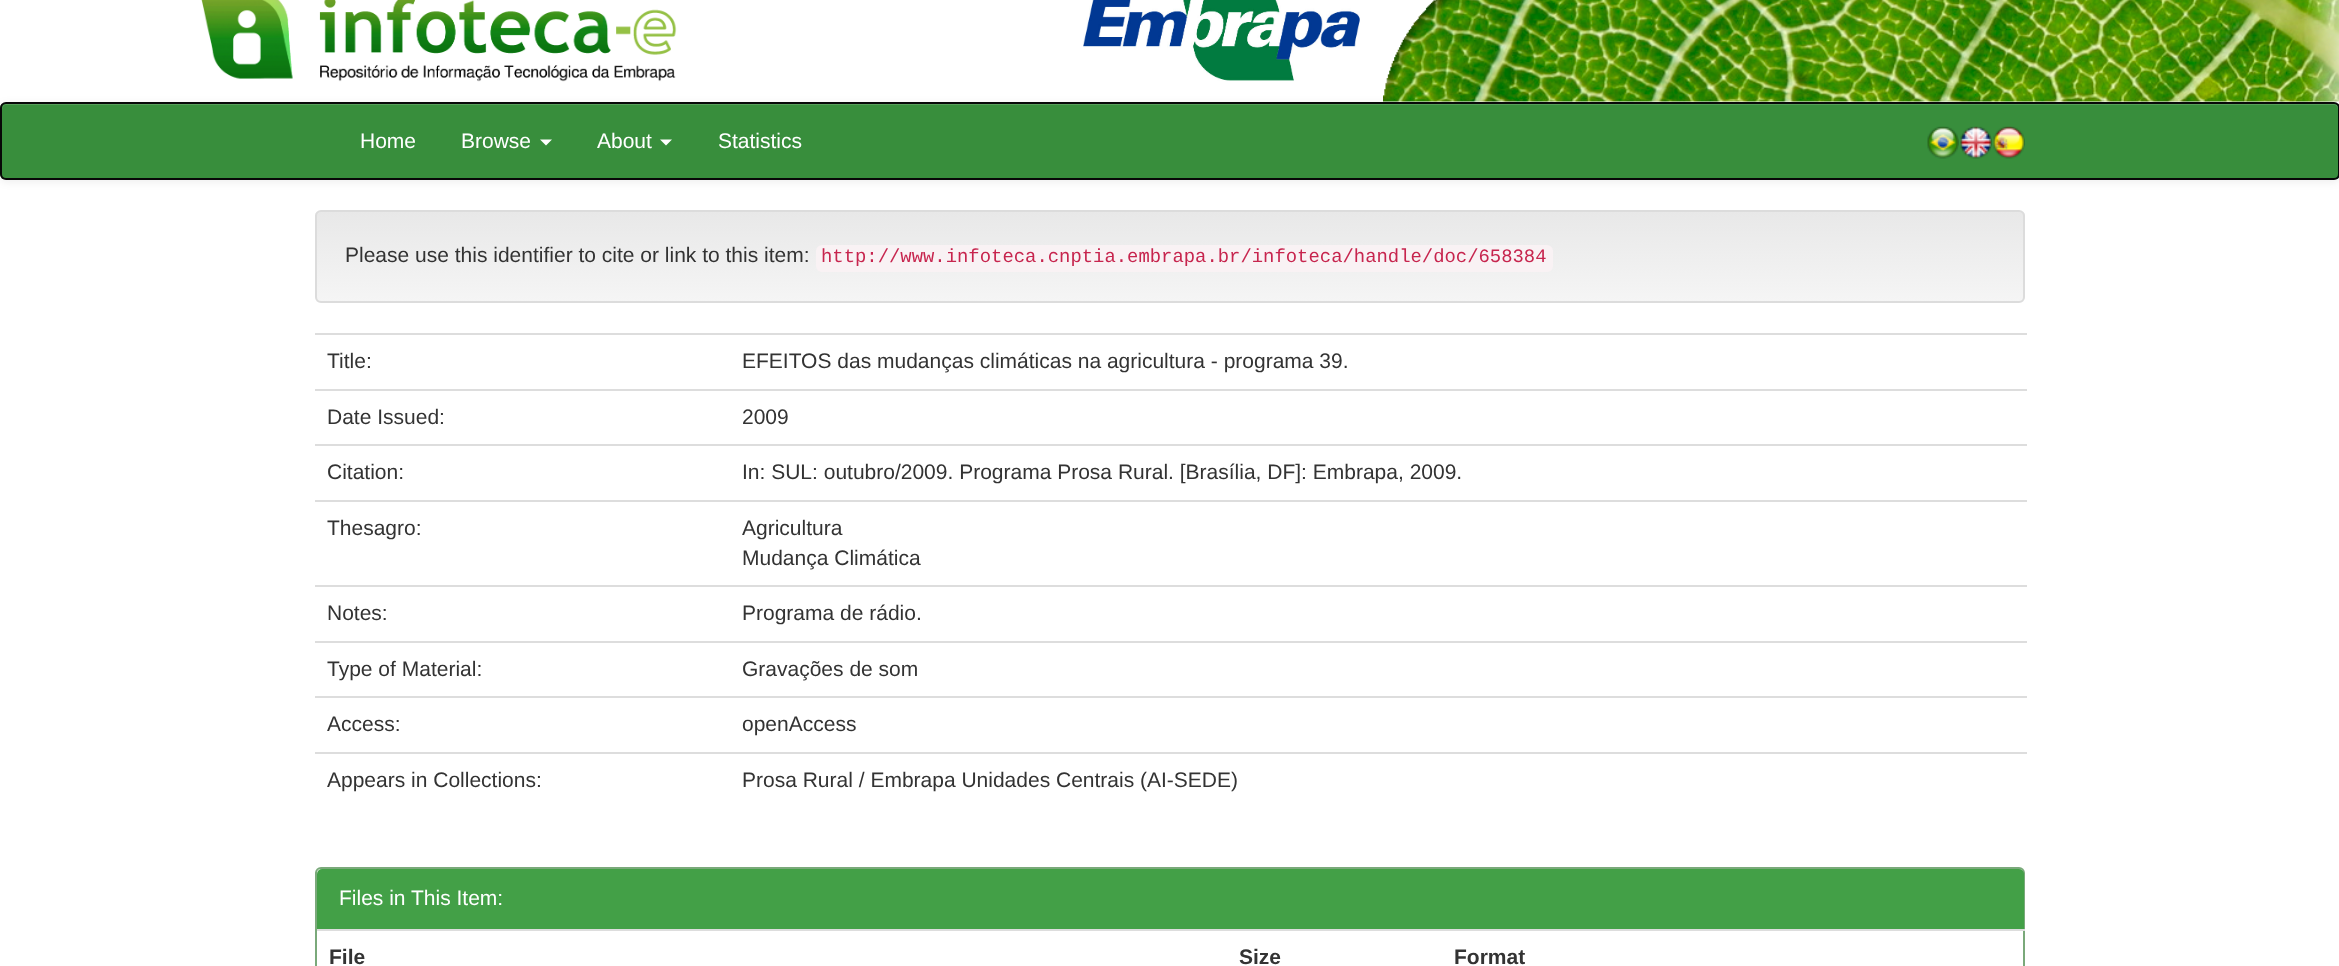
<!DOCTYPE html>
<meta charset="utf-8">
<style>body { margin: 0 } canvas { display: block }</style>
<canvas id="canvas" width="2339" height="966"></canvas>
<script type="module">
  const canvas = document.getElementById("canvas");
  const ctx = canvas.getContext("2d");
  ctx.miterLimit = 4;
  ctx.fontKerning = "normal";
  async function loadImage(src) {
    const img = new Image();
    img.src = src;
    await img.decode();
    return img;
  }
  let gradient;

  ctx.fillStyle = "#ffffff";
  ctx.fillRect(0, 0, 2339, 966);
  ctx.drawImage(await loadImage("img1.png"), 201, 0, 476, 82);
  ctx.drawImage(await loadImage("img2.png"), 1083, 0, 277, 81);
  ctx.drawImage(await loadImage("img3.png"), 1383, 0, 956, 102);
  ctx.fillStyle = "rgba(0, 0, 0, 0.07)";
  ctx.filter = "blur(4px)";
  ctx.beginPath();
  ctx.roundRect(0, 104, 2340, 78, 6);
  ctx.fill();
  ctx.filter = "none";
  ctx.save();
  ctx.beginPath();
  ctx.roundRect(0, 102, 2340, 78, 6);
  ctx.clip();
  ctx.fillStyle = "#388e3c";
  ctx.fillRect(0, 104, 2339, 75);
  ctx.restore();
  ctx.fillStyle = "#569f59";
  ctx.beginPath();
  ctx.moveTo(6, 105);
  ctx.lineTo(2334, 105);
  ctx.bezierCurveTo(2336, 105, 2338, 107, 2338, 110);
  ctx.lineTo(2338, 177);
  ctx.bezierCurveTo(2339, 176, 2339, 175, 2339, 174);
  ctx.lineTo(2339, 109);
  ctx.bezierCurveTo(2339, 106, 2337, 104, 2334, 104);
  ctx.lineTo(7, 104);
  ctx.bezierCurveTo(4, 104, 2, 106, 2, 109);
  ctx.lineTo(2, 110);
  ctx.bezierCurveTo(2, 107, 4, 105, 6, 105);
  ctx.closePath();
  ctx.fill();
  ctx.beginPath();
  ctx.roundRect(1, 103, 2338, 76, 5);
  ctx.strokeStyle = "#080808";
  ctx.lineWidth = 2;
  ctx.stroke();
  ctx.font = "21px Liberation Sans";
  ctx.fillStyle = "#ffffff";
  ctx.fillText("Home", 360, 148);
  ctx.fillText("Browse", 461, 148);
  ctx.beginPath();
  ctx.moveTo(540, 139.5);
  ctx.lineTo(552, 139.5);
  ctx.lineTo(546, 145.5);
  ctx.closePath();
  ctx.fill();
  ctx.fillText("About", 597, 148);
  ctx.beginPath();
  ctx.moveTo(660, 139.5);
  ctx.lineTo(672, 139.5);
  ctx.lineTo(666, 145.5);
  ctx.closePath();
  ctx.fill();
  ctx.fillText("Statistics", 718, 148);
  ctx.drawImage(await loadImage("img4.png"), 1927, 126, 32, 33);
  ctx.drawImage(await loadImage("img5.png"), 1960, 126, 32, 33);
  ctx.drawImage(await loadImage("img6.png"), 1993, 126, 32, 33);
  ctx.save();
  ctx.beginPath();
  ctx.roundRect(315, 210, 1710, 93, 6);
  ctx.clip();
  gradient = ctx.createLinearGradient(1170, 211, 1170, 302);
  gradient.addColorStop(0, "#e8e8e8");
  gradient.addColorStop(1, "#f5f5f5");
  ctx.fillStyle = gradient;
  ctx.fillRect(315, 212, 1710, 90);
  ctx.restore();
  ctx.beginPath();
  ctx.roundRect(316, 211, 1708, 91, 5);
  ctx.strokeStyle = "#dcdcdc";
  ctx.stroke();
  ctx.fillStyle = "#333333";
  ctx.fillText("Please use this identifier to cite or link to this item:", 345, 262);
  ctx.fillStyle = "#f9f2f4";
  ctx.beginPath();
  ctx.roundRect(816, 245, 737, 27, 6);
  ctx.fill();
  ctx.font = "18.9px Liberation Mono";
  ctx.fillStyle = "#c7254e";
  ctx.fillText("http://www.infoteca.cnptia.embrapa.br/infoteca/handle/doc/658384", 821, 262);
  ctx.font = "21px Liberation Sans";
  ctx.fillStyle = "#333333";
  ctx.fillText("Title:", 327, 368);
  ctx.fillStyle = "#dddddd";
  ctx.fillRect(315, 333, 1712, 2);
  ctx.fillStyle = "#333333";
  ctx.fillText("EFEITOS das mudanças climáticas na agricultura - programa 39.", 742, 368);
  ctx.fillText("Date Issued:", 327, 424);
  ctx.fillStyle = "#dddddd";
  ctx.fillRect(315, 389, 1712, 2);
  ctx.fillStyle = "#333333";
  ctx.fillText("2009", 742, 424);
  ctx.fillText("Citation:", 327, 479);
  ctx.fillStyle = "#dddddd";
  ctx.fillRect(315, 444, 1712, 2);
  ctx.fillStyle = "#333333";
  ctx.fillText("In: SUL: outubro/2009. Programa Prosa Rural. [Brasília, DF]: Embrapa, 2009.", 742, 479);
  ctx.fillText("Thesagro:", 327, 535);
  ctx.fillStyle = "#dddddd";
  ctx.fillRect(315, 500, 1712, 2);
  ctx.fillStyle = "#333333";
  ctx.fillText("Agricultura", 742, 535);
  ctx.fillText("Mudança Climática", 742, 565);
  ctx.fillText("Notes:", 327, 620);
  ctx.fillStyle = "#dddddd";
  ctx.fillRect(315, 585, 1712, 2);
  ctx.fillStyle = "#333333";
  ctx.fillText("Programa de rádio.", 742, 620);
  ctx.fillText("Type of Material:", 327, 676);
  ctx.fillStyle = "#dddddd";
  ctx.fillRect(315, 641, 1712, 2);
  ctx.fillStyle = "#333333";
  ctx.fillText("Gravações de som", 742, 676);
  ctx.fillText("Access:", 327, 731);
  ctx.fillStyle = "#dddddd";
  ctx.fillRect(315, 696, 1712, 2);
  ctx.fillStyle = "#333333";
  ctx.fillText("openAccess", 742, 731);
  ctx.fillText("Appears in Collections:", 327, 787);
  ctx.fillStyle = "#dddddd";
  ctx.fillRect(315, 752, 1712, 2);
  ctx.fillStyle = "#333333";
  ctx.fillText("Prosa Rural / Embrapa Unidades Centrais (AI-SEDE)", 742, 787);
  ctx.beginPath();
  ctx.roundRect(316, 868, 1708, 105, 5);
  ctx.strokeStyle = "#7aa97a";
  ctx.stroke();
  ctx.fillStyle = "#43a047";
  ctx.beginPath();
  ctx.roundRect(317, 869, 1707, 60, [5, 5, 0, 0]);
  ctx.fill();
  ctx.fillStyle = "#ffffff";
  ctx.fillText("Files in This Item:", 339, 905);
  ctx.fillStyle = "#dddddd";
  ctx.fillRect(317, 929, 1708, 2);
  ctx.font = "bold 21px Liberation Sans";
  ctx.fillStyle = "#333333";
  ctx.fillText("File", 329, 964);
  ctx.fillText("Size", 1239, 964);
  ctx.fillText("Format", 1454, 964);
</script>
